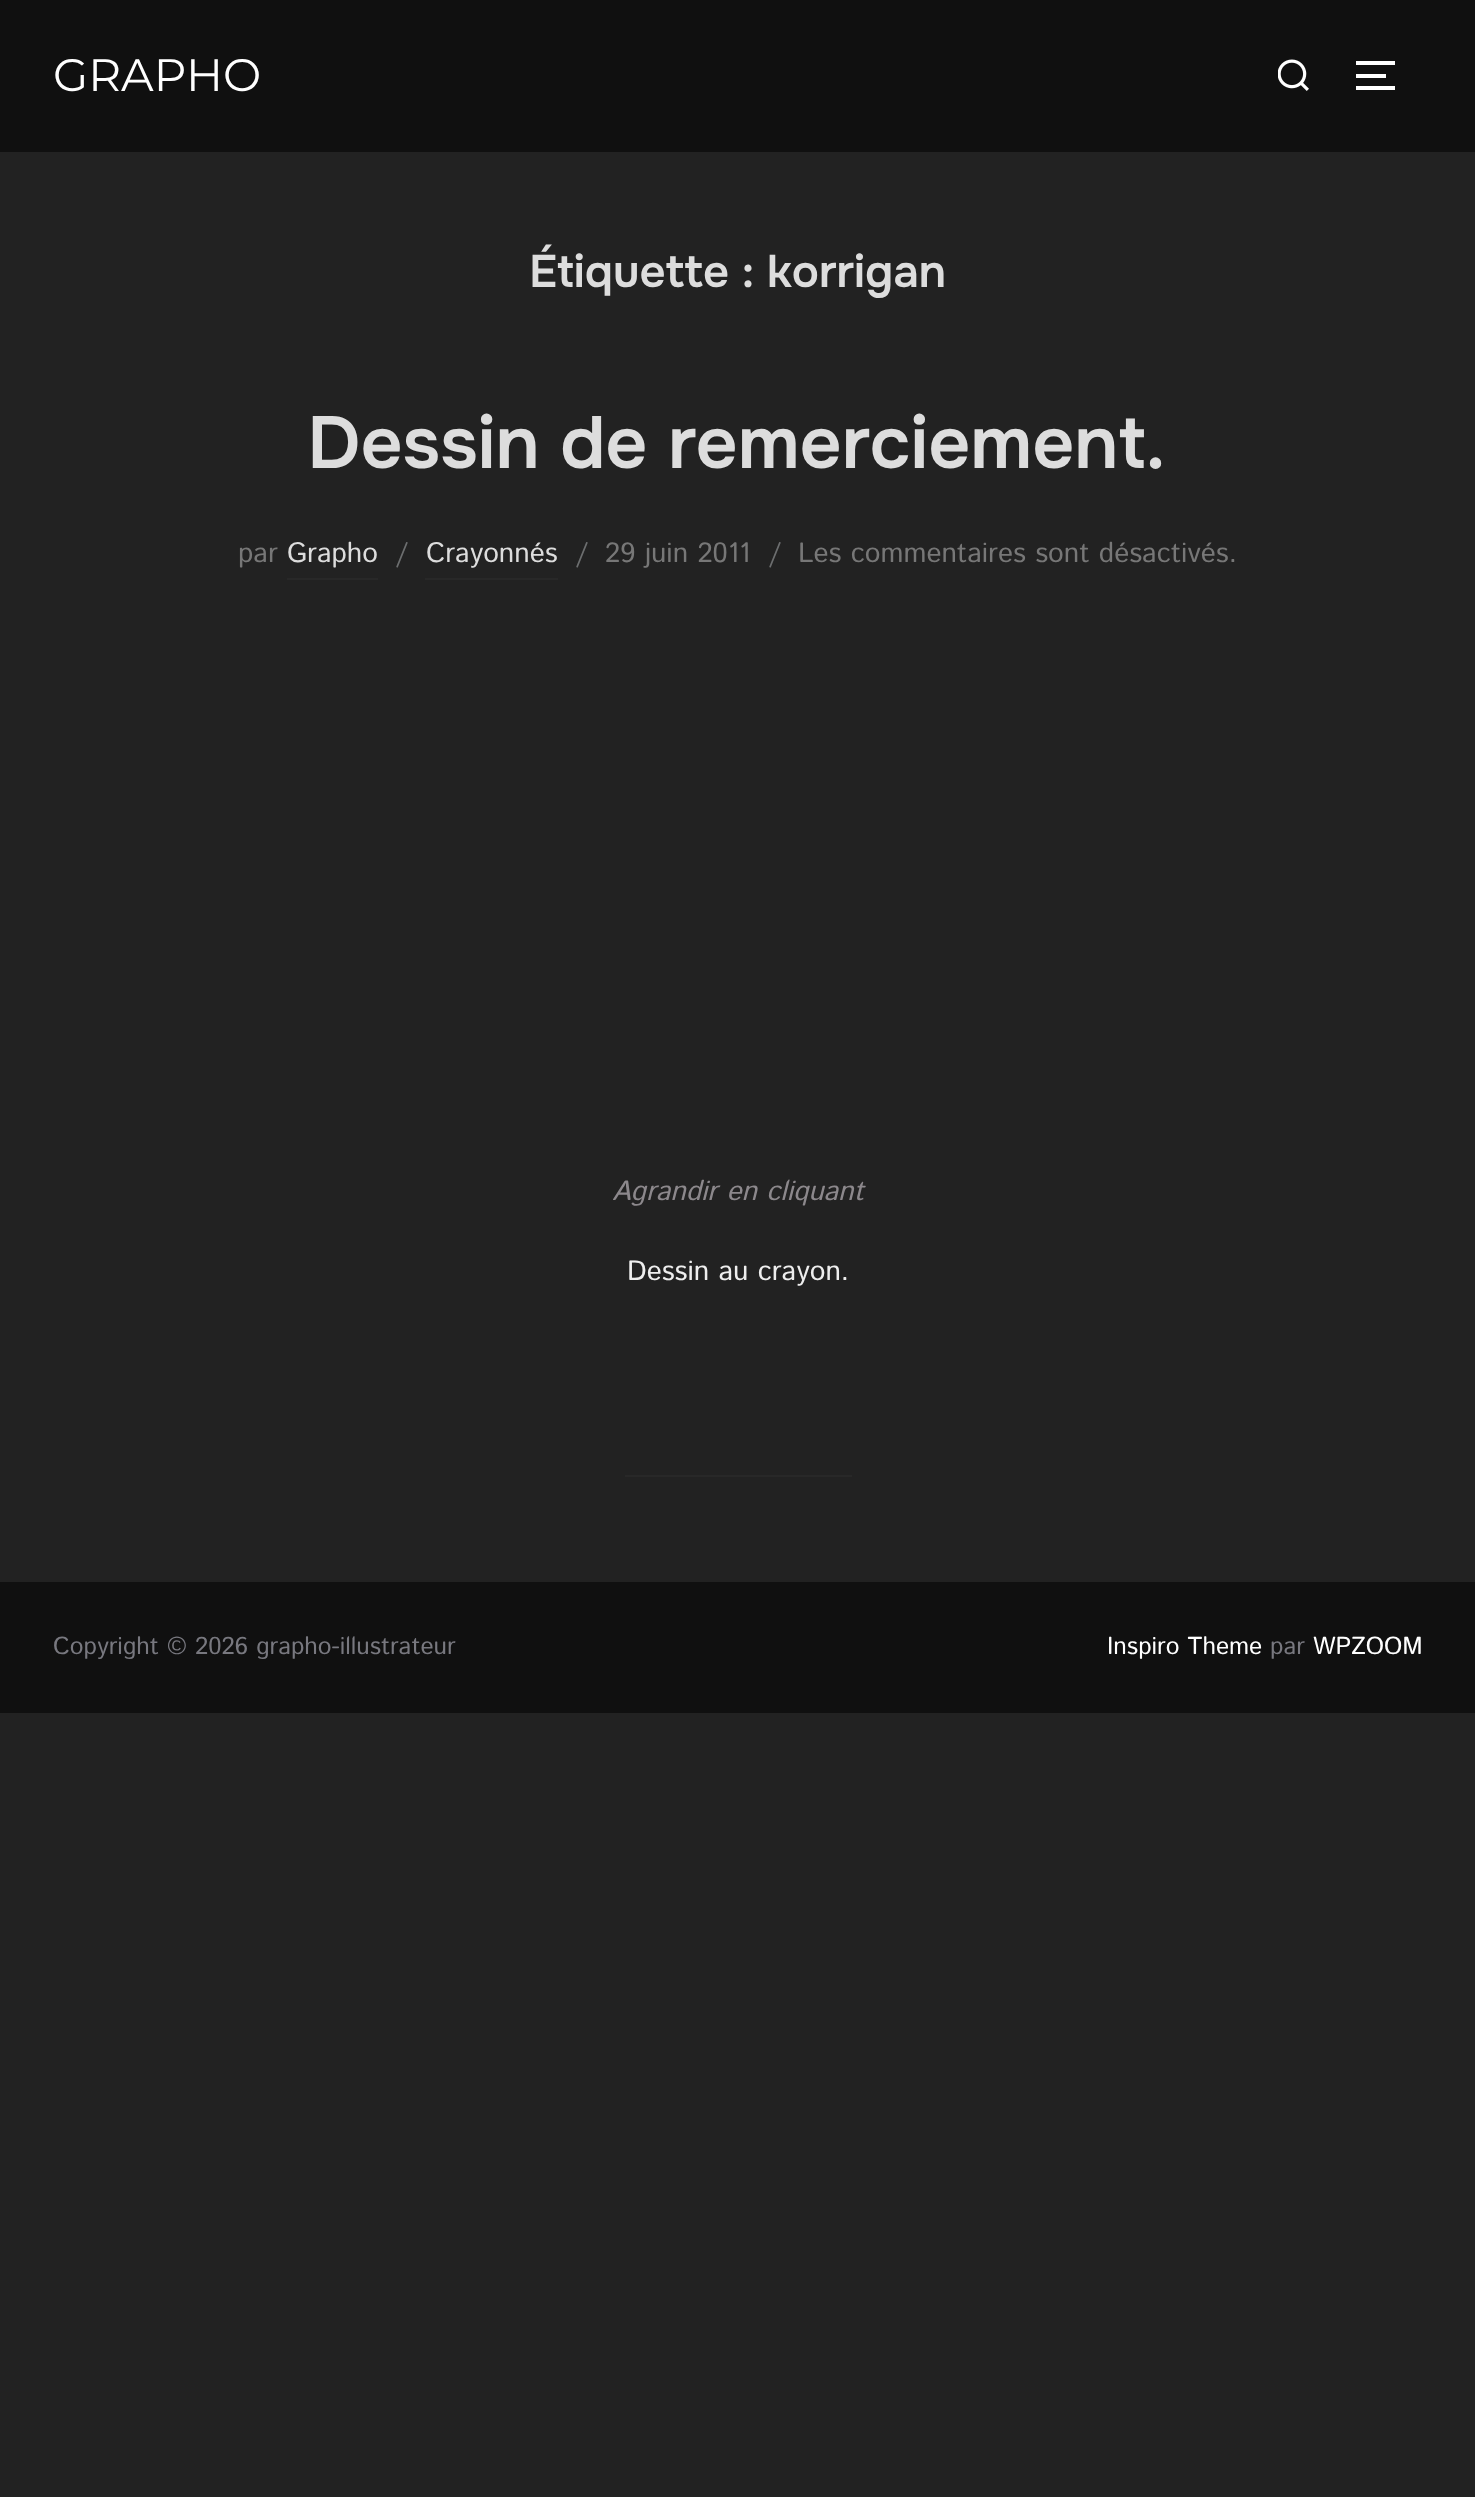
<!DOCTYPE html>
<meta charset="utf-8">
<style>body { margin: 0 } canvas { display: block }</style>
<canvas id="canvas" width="1475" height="2497"></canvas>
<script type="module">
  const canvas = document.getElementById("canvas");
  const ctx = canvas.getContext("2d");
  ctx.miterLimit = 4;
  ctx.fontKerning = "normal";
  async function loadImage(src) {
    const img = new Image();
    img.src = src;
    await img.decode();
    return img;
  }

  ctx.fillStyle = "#222222";
  ctx.fillRect(0, 0, 1475, 2497);
  ctx.fillStyle = "#101010";
  ctx.fillRect(0, 0, 1475, 152);
  ctx.font = "100 45.5px Montserrat";
  ctx.fillStyle = "#ffffff";
  ctx.fillText("GRAPHO", 53, 91);
  ctx.drawImage(await loadImage("img1.png"), 1278, 59, 31, 32);
  ctx.fillRect(1356, 61, 39, 4);
  ctx.fillRect(1356, 74, 30, 4);
  ctx.fillRect(1356, 86, 39, 4);
  ctx.font = "600 45.5px Onest";
  ctx.fillStyle = "#dddddd";
  ctx.fillText("Étiquette : korrigan", 529, 287);
  ctx.font = "600 73.5px Onest";
  ctx.fillText("Dessin de remerciement.", 307, 468);
  ctx.font = "28px Istok Web";
  ctx.fillStyle = "#777777";
  ctx.fillText("par", 238, 562);
  ctx.fillStyle = "#dddddd";
  ctx.fillText("Grapho", 287, 562);
  ctx.fillStyle = "#282828";
  ctx.fillRect(287, 578, 91, 2);
  ctx.fillStyle = "#6c6e6f";
  ctx.fillText("/", 396, 562);
  ctx.fillStyle = "#dddddd";
  ctx.fillText("Crayonnés", 426, 562);
  ctx.fillStyle = "#282828";
  ctx.fillRect(425, 578, 133, 2);
  ctx.fillStyle = "#6c6e6f";
  ctx.fillText("/", 576, 562);
  ctx.fillStyle = "#777777";
  ctx.fillText("29 juin 2011", 605, 562);
  ctx.fillStyle = "#6c6e6f";
  ctx.fillText("/", 769, 562);
  ctx.fillStyle = "#777777";
  ctx.fillText("Les commentaires sont désactivés.", 798, 562);
  ctx.font = "italic 28px Istok Web";
  ctx.fillStyle = "#8c888c";
  ctx.fillText("Agrandir en cliquant", 612, 1200);
  ctx.font = "28px Istok Web";
  ctx.fillStyle = "#eeeeee";
  ctx.fillText("Dessin au crayon.", 627, 1280);
  ctx.fillStyle = "#282828";
  ctx.fillRect(625, 1475, 227, 2);
  ctx.fillStyle = "#101010";
  ctx.fillRect(0, 1582, 1475, 131);
  ctx.font = "24.5px Istok Web";
  ctx.fillStyle = "#78787f";
  ctx.fillText("Copyright © 2026 grapho-illustrateur", 53, 1654);
  ctx.fillStyle = "#ffffff";
  ctx.fillText("Inspiro Theme", 1107, 1654);
  ctx.fillStyle = "#78787f";
  ctx.fillText("par", 1270, 1654);
  ctx.fillStyle = "#ffffff";
  ctx.fillText("WPZOOM", 1313, 1654);
</script>
